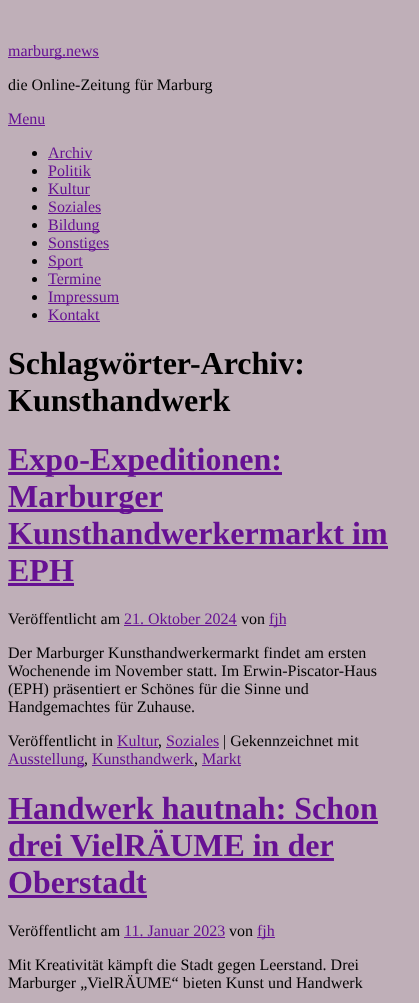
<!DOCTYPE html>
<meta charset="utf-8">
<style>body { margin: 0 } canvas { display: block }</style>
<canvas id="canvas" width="419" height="1003"></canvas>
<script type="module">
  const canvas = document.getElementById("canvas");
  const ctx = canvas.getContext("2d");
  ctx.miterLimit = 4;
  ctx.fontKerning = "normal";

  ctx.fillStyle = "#bfafb8";
  ctx.fillRect(0, 0, 419, 1003);
  ctx.fillStyle = "#661193";
  ctx.fillRect(8, 57, 91, 1);
  ctx.font = "16px Liberation Serif";
  ctx.fillText("marburg.news", 8, 56);
  ctx.fillStyle = "#000000";
  ctx.fillText("die Online-Zeitung für Marburg", 8, 90);
  ctx.fillStyle = "#661193";
  ctx.fillText("Menu", 8, 124);
  ctx.fillRect(8, 125, 37, 1);
  ctx.fillStyle = "#000000";
  ctx.beginPath();
  ctx.arc(34.5, 153.5, 2.5, 0, Math.PI * 2);
  ctx.fill();
  ctx.fillStyle = "#661193";
  ctx.fillText("Archiv", 48, 158);
  ctx.fillRect(48, 159, 44, 1);
  ctx.fillStyle = "#000000";
  ctx.beginPath();
  ctx.arc(34.5, 171.5, 2.5, 0, Math.PI * 2);
  ctx.fill();
  ctx.fillStyle = "#661193";
  ctx.fillText("Politik", 48, 176);
  ctx.fillRect(48, 177, 43, 1);
  ctx.fillStyle = "#000000";
  ctx.beginPath();
  ctx.arc(34.5, 189.5, 2.5, 0, Math.PI * 2);
  ctx.fill();
  ctx.fillStyle = "#661193";
  ctx.fillText("Kultur", 48, 194);
  ctx.fillRect(48, 195, 42, 1);
  ctx.fillStyle = "#000000";
  ctx.beginPath();
  ctx.arc(34.5, 207.5, 2.5, 0, Math.PI * 2);
  ctx.fill();
  ctx.fillStyle = "#661193";
  ctx.fillText("Soziales", 48, 212);
  ctx.fillRect(48, 213, 53, 1);
  ctx.fillStyle = "#000000";
  ctx.beginPath();
  ctx.arc(34.5, 225.5, 2.5, 0, Math.PI * 2);
  ctx.fill();
  ctx.fillStyle = "#661193";
  ctx.fillRect(48, 231, 52, 1);
  ctx.fillText("Bildung", 48, 230);
  ctx.fillStyle = "#000000";
  ctx.beginPath();
  ctx.arc(34.5, 243.5, 2.5, 0, Math.PI * 2);
  ctx.fill();
  ctx.fillStyle = "#661193";
  ctx.fillRect(48, 249, 61, 1);
  ctx.fillText("Sonstiges", 48, 248);
  ctx.fillStyle = "#000000";
  ctx.beginPath();
  ctx.arc(34.5, 261.5, 2.5, 0, Math.PI * 2);
  ctx.fill();
  ctx.fillStyle = "#661193";
  ctx.fillRect(48, 267, 35, 1);
  ctx.fillText("Sport", 48, 266);
  ctx.fillStyle = "#000000";
  ctx.beginPath();
  ctx.arc(34.5, 279.5, 2.5, 0, Math.PI * 2);
  ctx.fill();
  ctx.fillStyle = "#661193";
  ctx.fillText("Termine", 48, 284);
  ctx.fillRect(48, 285, 53, 1);
  ctx.fillStyle = "#000000";
  ctx.beginPath();
  ctx.arc(34.5, 297.5, 2.5, 0, Math.PI * 2);
  ctx.fill();
  ctx.fillStyle = "#661193";
  ctx.fillRect(48, 303, 71, 1);
  ctx.fillText("Impressum", 48, 302);
  ctx.fillStyle = "#000000";
  ctx.beginPath();
  ctx.arc(34.5, 315.5, 2.5, 0, Math.PI * 2);
  ctx.fill();
  ctx.fillStyle = "#661193";
  ctx.fillText("Kontakt", 48, 320);
  ctx.fillRect(48, 321, 52, 1);
  ctx.font = "bold 32px Liberation Serif";
  ctx.fillStyle = "#000000";
  ctx.fillText("Schlagwörter-Archiv:", 8, 374);
  ctx.fillText("Kunsthandwerk", 8, 411);
  ctx.fillStyle = "#661193";
  ctx.fillRect(8, 472, 274, 3);
  ctx.fillText("Expo-Expeditionen:", 8, 470);
  ctx.fillRect(8, 509, 155, 3);
  ctx.fillText("Marburger", 8, 507);
  ctx.fillText("Kunsthandwerkermarkt im", 8, 544);
  ctx.fillRect(8, 546, 380, 3);
  ctx.fillText("EPH", 8, 581);
  ctx.fillRect(8, 583, 66, 3);
  ctx.font = "16px Liberation Serif";
  ctx.fillStyle = "#000000";
  ctx.fillText("Veröffentlicht am", 8, 624);
  ctx.fillStyle = "#661193";
  ctx.fillText("21. Oktober 2024", 124, 624);
  ctx.fillRect(124, 625, 113, 1);
  ctx.fillStyle = "#000000";
  ctx.fillText("von", 241, 624);
  ctx.fillStyle = "#661193";
  ctx.fillRect(269, 625, 17, 1);
  ctx.fillText("fjh", 269, 624);
  ctx.fillStyle = "#000000";
  ctx.fillText("Der Marburger Kunsthandwerkermarkt findet am ersten", 8, 658);
  ctx.fillText("Wochenende im November statt. Im Erwin-Piscator-Haus", 8, 676);
  ctx.fillText("(EPH) präsentiert er Schönes für die Sinne und", 8, 694);
  ctx.fillText("Handgemachtes für Zuhause.", 8, 712);
  ctx.fillText("Veröffentlicht in", 8, 746);
  ctx.fillStyle = "#661193";
  ctx.fillText("Kultur", 117, 746);
  ctx.fillStyle = "#000000";
  ctx.fillText(",", 158, 746);
  ctx.fillStyle = "#661193";
  ctx.fillRect(117, 747, 41, 1);
  ctx.fillRect(166, 747, 53, 1);
  ctx.fillText("Soziales", 166, 746);
  ctx.fillStyle = "#000000";
  ctx.fillText("| Gekennzeichnet mit", 223, 746);
  ctx.fillStyle = "#661193";
  ctx.fillRect(8, 765, 76, 1);
  ctx.fillText("Ausstellung", 8, 764);
  ctx.fillStyle = "#000000";
  ctx.fillText(",", 84, 764);
  ctx.fillStyle = "#661193";
  ctx.fillText("Kunsthandwerk", 92, 764);
  ctx.fillStyle = "#000000";
  ctx.fillText(",", 194, 764);
  ctx.fillStyle = "#661193";
  ctx.fillRect(92, 765, 102, 1);
  ctx.fillRect(202, 765, 39, 1);
  ctx.fillText("Markt", 202, 764);
  ctx.font = "bold 32px Liberation Serif";
  ctx.fillText("Handwerk hautnah: Schon", 8, 819);
  ctx.fillRect(8, 821, 370, 3);
  ctx.fillText("drei VielRÄUME in der", 8, 856);
  ctx.fillRect(8, 858, 326, 3);
  ctx.fillText("Oberstadt", 8, 893);
  ctx.fillRect(8, 895, 139, 3);
  ctx.font = "16px Liberation Serif";
  ctx.fillStyle = "#000000";
  ctx.fillText("Veröffentlicht am", 8, 936);
  ctx.fillStyle = "#661193";
  ctx.fillText("11. Januar 2023", 124, 936);
  ctx.fillRect(124, 937, 101, 1);
  ctx.fillStyle = "#000000";
  ctx.fillText("von", 229, 936);
  ctx.fillStyle = "#661193";
  ctx.fillRect(257, 937, 18, 1);
  ctx.fillText("fjh", 257, 936);
  ctx.fillStyle = "#000000";
  ctx.fillText("Mit Kreativität kämpft die Stadt gegen Leerstand. Drei", 8, 970);
  ctx.fillText("Marburger „VielRÄUME“ bieten Kunst und Handwerk", 8, 988);
</script>
